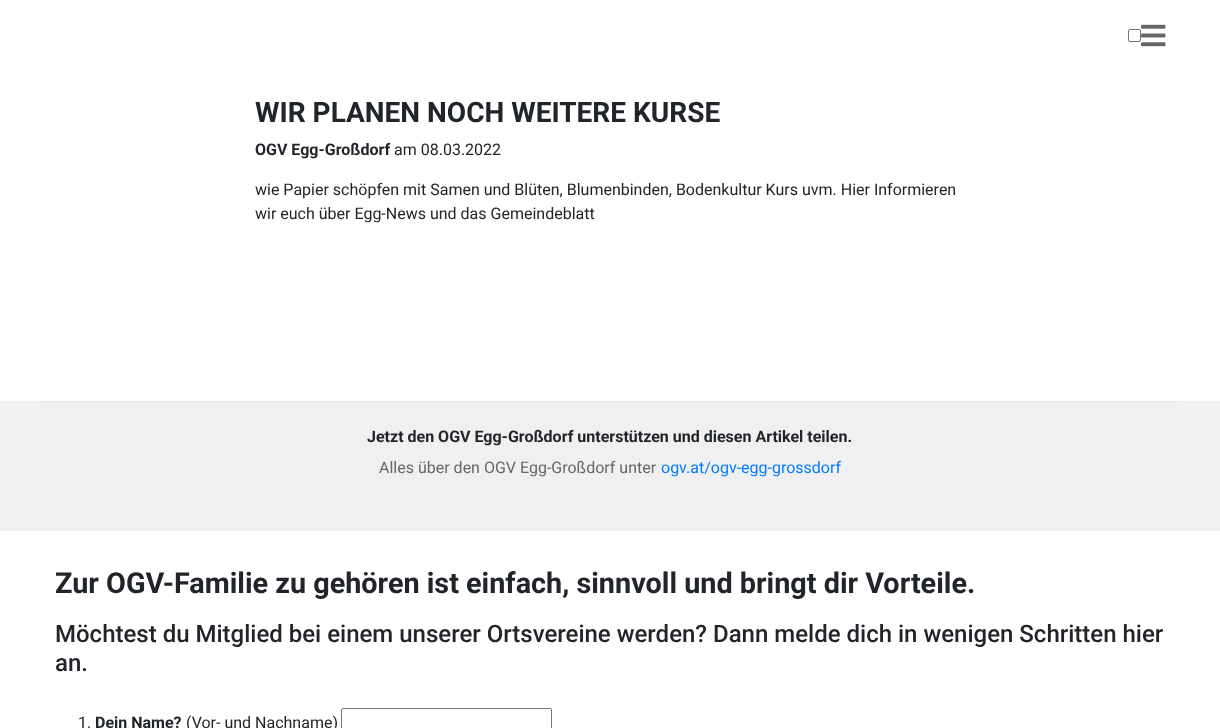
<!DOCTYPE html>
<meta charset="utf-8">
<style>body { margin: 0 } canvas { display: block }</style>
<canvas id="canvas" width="1220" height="728"></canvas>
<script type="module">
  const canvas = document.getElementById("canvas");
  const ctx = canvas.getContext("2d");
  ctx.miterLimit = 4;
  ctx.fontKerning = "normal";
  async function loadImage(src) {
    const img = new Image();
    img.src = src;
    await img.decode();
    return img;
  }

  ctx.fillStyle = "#ffffff";
  ctx.fillRect(0, 0, 1220, 728);
  ctx.beginPath();
  ctx.roundRect(1128.5, 29.5, 12, 12, 1.5);
  ctx.strokeStyle = "#767676";
  ctx.stroke();
  ctx.drawImage(await loadImage("img1.png"), 1141, 24, 25, 23);
  ctx.font = "bold 28px Roboto";
  ctx.fillStyle = "#212529";
  ctx.fillText("WIR PLANEN NOCH WEITERE KURSE", 255, 122);
  ctx.font = "bold 16px Roboto";
  ctx.fillText("OGV Egg-Großdorf", 255, 155);
  ctx.font = "16px Roboto";
  ctx.fillText("am 08.03.2022", 394, 155);
  ctx.fillText("wie Papier schöpfen mit Samen und Blüten, Blumenbinden, Bodenkultur Kurs uvm. Hier Informieren", 255, 195);
  ctx.fillText("wir euch über Egg-News und das Gemeindeblatt", 255, 219);
  ctx.fillStyle = "#f0f0f0";
  ctx.fillRect(0, 401, 1220, 130);
  ctx.fillStyle = "#e9e9e9";
  ctx.fillRect(40, 401, 1140, 1);
  ctx.font = "bold 16px Roboto";
  ctx.fillStyle = "#212529";
  ctx.fillText("Jetzt den OGV Egg-Großdorf unterstützen und diesen Artikel teilen.", 367, 442);
  ctx.font = "16px Roboto";
  ctx.fillStyle = "#666666";
  ctx.fillText("Alles über den OGV Egg-Großdorf unter", 379, 473);
  ctx.fillStyle = "#007bff";
  ctx.fillText("ogv.at/ogv-egg-grossdorf", 661, 473);
  ctx.font = "bold 28.8px Roboto";
  ctx.fillStyle = "#212529";
  ctx.fillText("Zur OGV-Familie zu gehören ist einfach, sinnvoll und bringt dir Vorteile.", 55, 593);
  ctx.font = "500 24px Roboto";
  ctx.fillText("Möchtest du Mitglied bei einem unserer Ortsvereine werden? Dann melde dich in wenigen Schritten hier", 55, 642);
  ctx.fillText("an.", 55, 671);
  ctx.font = "16px Roboto";
  ctx.fillText("1.", 78, 728);
  ctx.font = "bold 16px Roboto";
  ctx.fillText("Dein Name?", 95, 728);
  ctx.font = "16px Roboto";
  ctx.fillText("(Vor- und Nachname)", 186, 728);
  ctx.beginPath();
  ctx.roundRect(341.5, 708.5, 210, 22, 1.5);
  ctx.stroke();
</script>
